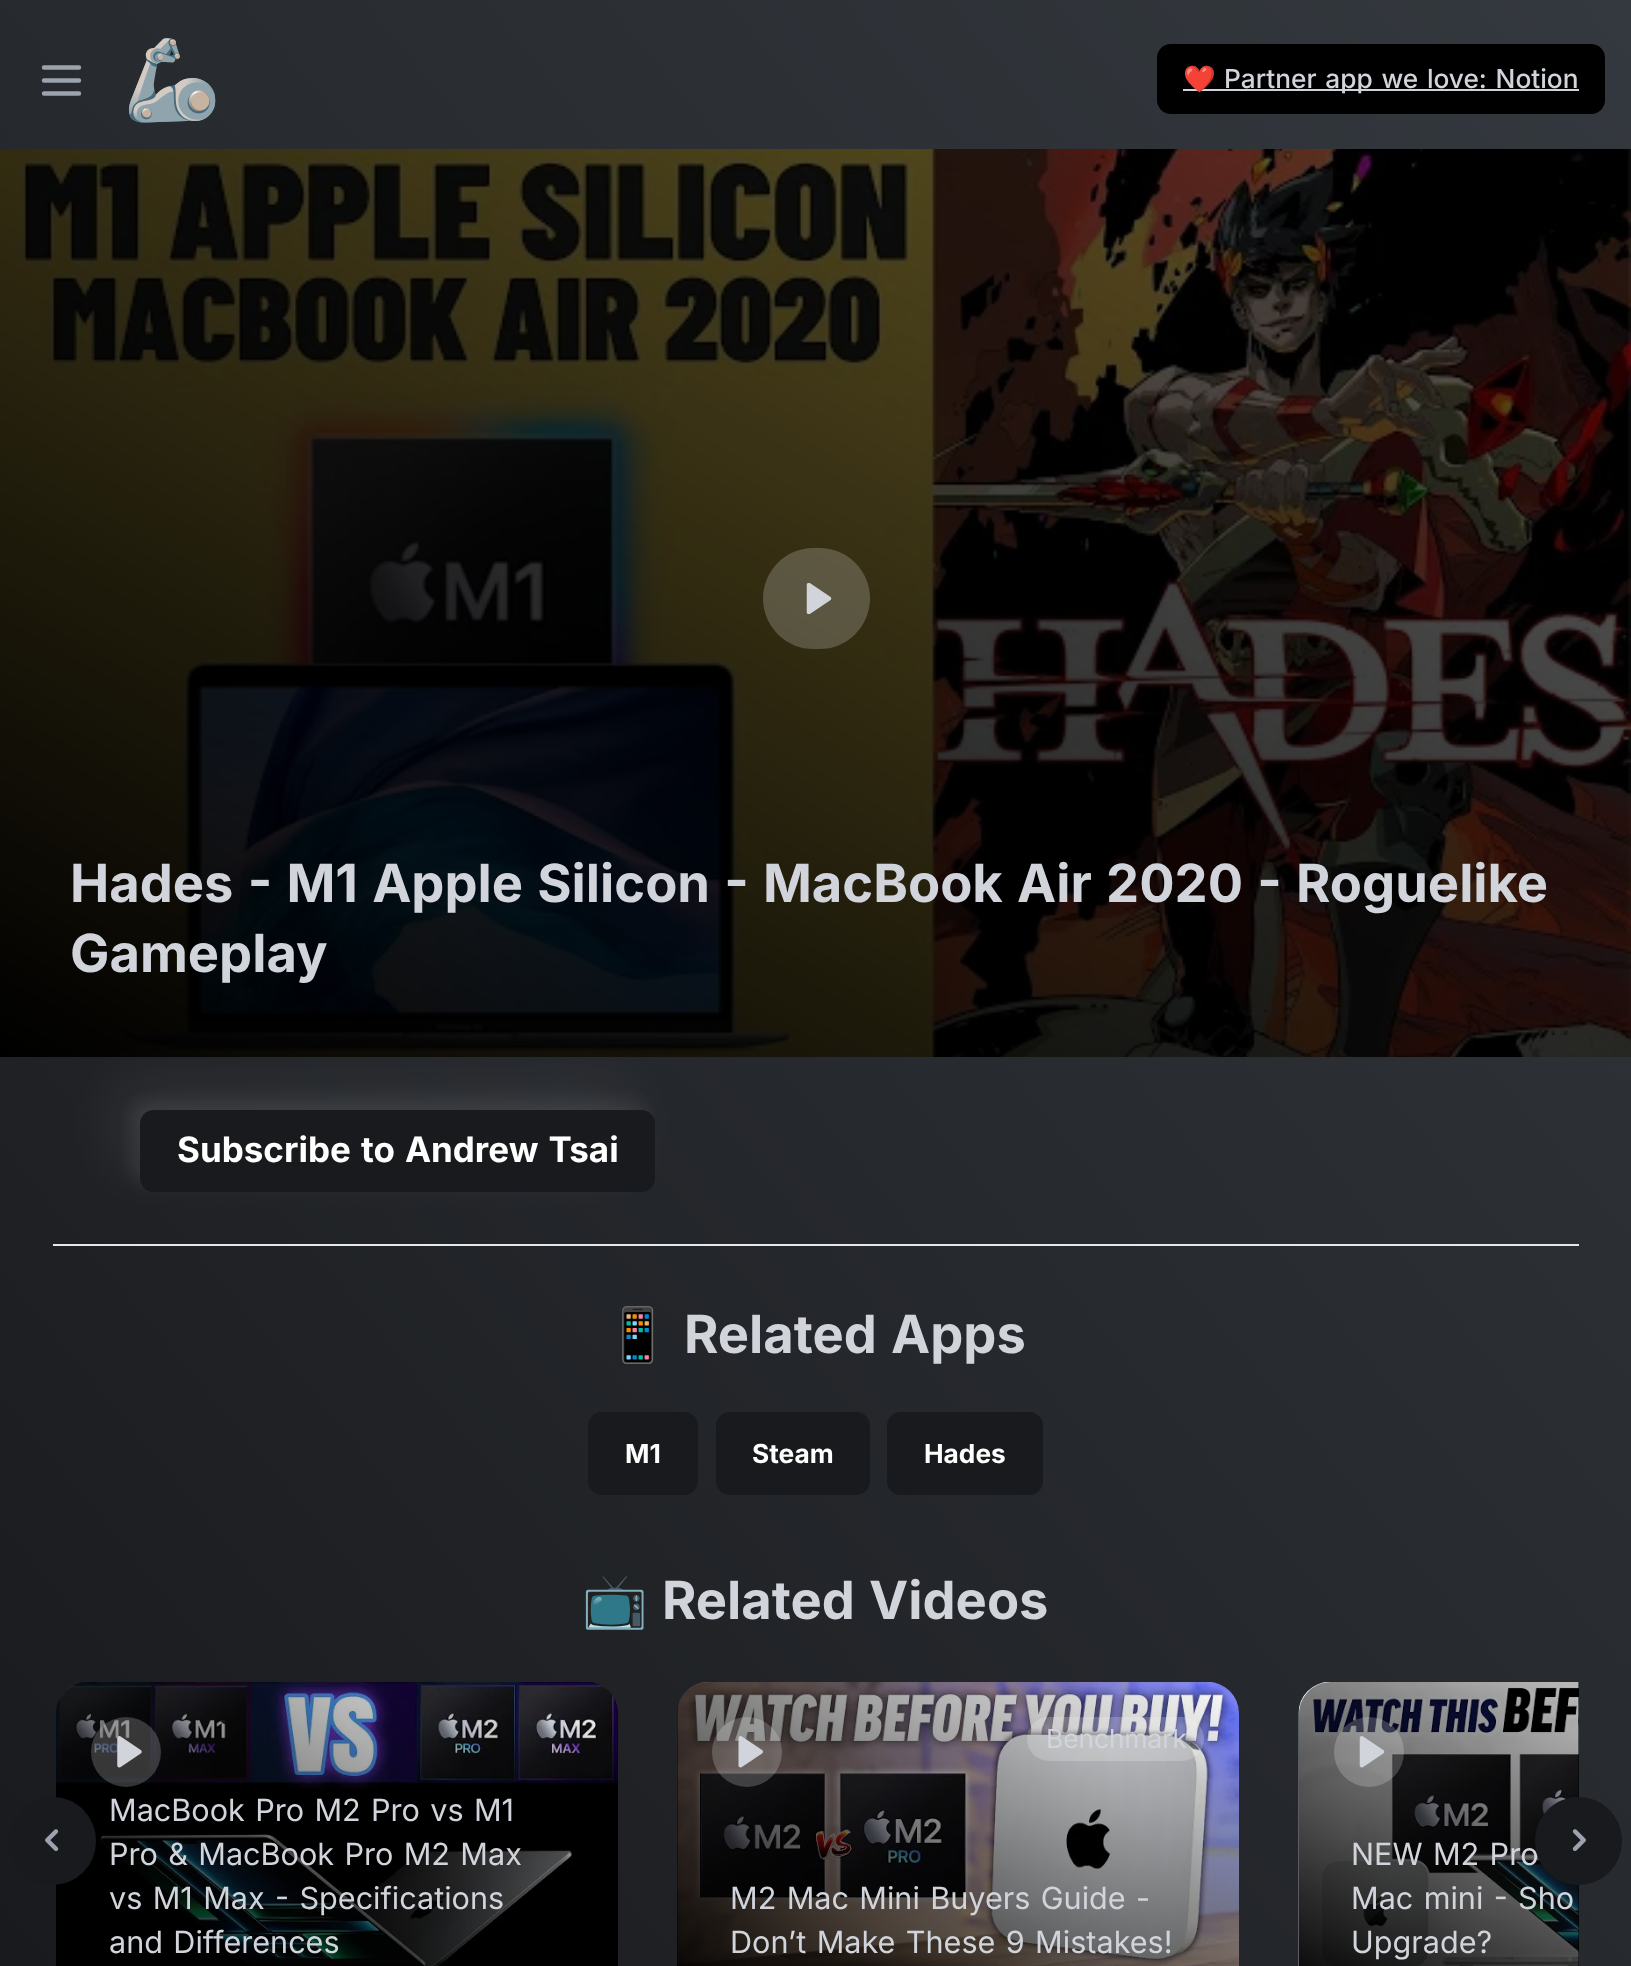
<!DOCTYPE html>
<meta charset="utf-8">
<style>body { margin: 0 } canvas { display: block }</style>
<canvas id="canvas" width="1631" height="1966"></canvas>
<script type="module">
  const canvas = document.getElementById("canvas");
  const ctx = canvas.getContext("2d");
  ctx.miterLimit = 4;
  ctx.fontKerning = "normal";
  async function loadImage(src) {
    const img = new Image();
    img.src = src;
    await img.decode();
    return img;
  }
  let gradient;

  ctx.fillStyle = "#ffffff";
  ctx.fillRect(0, 0, 1631, 1966);
  gradient = ctx.createLinearGradient(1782, 182, -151, 1785);
  gradient.addColorStop(0, "#34393f");
  gradient.addColorStop(1, "#191a1d");
  ctx.fillStyle = gradient;
  ctx.fillRect(0, 1057, 1631, 909);
  ctx.fillRect(0, 0, 1631, 149);
  ctx.beginPath();
  ctx.moveTo(44, 67.5);
  ctx.lineTo(79, 67.5);
  ctx.moveTo(44, 80.5);
  ctx.lineTo(79, 80.5);
  ctx.moveTo(44, 93.5);
  ctx.lineTo(79, 93.5);
  ctx.strokeStyle = "#9ca3af";
  ctx.lineWidth = 4.4;
  ctx.lineCap = "round";
  ctx.lineJoin = "round";
  ctx.stroke();
  ctx.font = "79px Noto Color Emoji";
  ctx.fillStyle = "#d1d5db";
  ctx.fillText("🦾", 123, 107);
  ctx.fillStyle = "#000000";
  ctx.beginPath();
  ctx.roundRect(1157, 44, 448, 70, 14);
  ctx.fill();
  ctx.fillStyle = "#d1d5db";
  ctx.fillRect(1183, 89, 396, 2);
  ctx.font = "26.25px Noto Color Emoji";
  ctx.fillText("❤️", 1183, 88);
  ctx.wordSpacing = "1.75px";
  ctx.font = "500 26.25px Inter";
  ctx.fillText("Partner app we love: Notion", 1224, 88);
  ctx.drawImage(await loadImage("img1.png"), 0, 149, 1631, 908);
  ctx.fillStyle = "rgba(255, 255, 255, 0.2)";
  ctx.beginPath();
  ctx.roundRect(763, 548, 107, 101, 50.5);
  ctx.fill();
  ctx.drawImage(await loadImage("img2.png"), 806, 583, 26, 31);
  ctx.font = "bold 52.5px Inter";
  ctx.fillStyle = "#d1d5db";
  ctx.fillText("Hades - M1 Apple Silicon - MacBook Air 2020 - Roguelike", 70, 902);
  ctx.wordSpacing = "0px";
  ctx.fillText("Gameplay", 70, 972);
  ctx.fillStyle = "#e5e7eb";
  ctx.fillRect(53, 1244, 1526, 2);
  ctx.fillStyle = "rgba(255, 255, 255, 0.07)";
  ctx.filter = "blur(30.5px)";
  ctx.beginPath();
  ctx.roundRect(114, 1083, 514, 83, 14);
  ctx.fill();
  ctx.filter = "none";
  ctx.filter = "blur(9px)";
  ctx.beginPath();
  ctx.roundRect(131, 1101, 515, 82, 14);
  ctx.fill();
  ctx.filter = "none";
  ctx.fillStyle = "#191a1d";
  ctx.beginPath();
  ctx.roundRect(140, 1110, 515, 82, 14);
  ctx.fill();
  ctx.wordSpacing = "1.75px";
  ctx.font = "bold 35px Inter";
  ctx.fillStyle = "#ffffff";
  ctx.fillText("Subscribe to Andrew Tsai", 177, 1162);
  ctx.wordSpacing = "0px";
  ctx.font = "bold 52.5px Noto Color Emoji";
  ctx.fillStyle = "#d1d5db";
  ctx.fillText("📱", 605, 1353);
  ctx.wordSpacing = "1.75px";
  ctx.font = "bold 52.5px Inter";
  ctx.fillText("Related Apps", 684, 1353);
  ctx.fillStyle = "#191a1d";
  ctx.beginPath();
  ctx.roundRect(588, 1412, 110, 83, 14);
  ctx.fill();
  ctx.wordSpacing = "0px";
  ctx.font = "bold 26.25px Inter";
  ctx.fillStyle = "#ffffff";
  ctx.fillText("M1", 625, 1463);
  ctx.fillStyle = "#191a1d";
  ctx.beginPath();
  ctx.roundRect(716, 1412, 154, 83, 14);
  ctx.fill();
  ctx.fillStyle = "#ffffff";
  ctx.fillText("Steam", 752, 1463);
  ctx.fillStyle = "#191a1d";
  ctx.beginPath();
  ctx.roundRect(887, 1412, 156, 83, 14);
  ctx.fill();
  ctx.fillStyle = "#ffffff";
  ctx.fillText("Hades", 924, 1463);
  ctx.font = "bold 52.5px Noto Color Emoji";
  ctx.fillStyle = "#d1d5db";
  ctx.fillText("📺", 582, 1619);
  ctx.wordSpacing = "1.75px";
  ctx.font = "bold 52.5px Inter";
  ctx.fillText("Related Videos", 662, 1619);
  ctx.fillStyle = "#000000";
  ctx.beginPath();
  ctx.roundRect(56, 1682, 562, 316, 32);
  ctx.fill();
  ctx.drawImage(await loadImage("img4.png"), 56, 1682, 562, 284);
  gradient = ctx.createLinearGradient(201, 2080, 472, 1600);
  gradient.addColorStop(0, "#000000");
  gradient.addColorStop(1, "rgba(0, 0, 0, 0)");
  ctx.fillStyle = gradient;
  ctx.beginPath();
  ctx.roundRect(56, 1682, 562, 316, 32);
  ctx.fill();
  ctx.fillStyle = "#191a1d";
  ctx.beginPath();
  ctx.roundRect(9, 1797, 87, 88, 43.5);
  ctx.fill();
  ctx.drawImage(await loadImage("img3.png"), 45, 1829, 14, 22);
  ctx.fillStyle = "rgba(255, 255, 255, 0.2)";
  ctx.beginPath();
  ctx.arc(126, 1752, 35, 0, Math.PI * 2);
  ctx.fill();
  ctx.drawImage(await loadImage("img5.png"), 117, 1736, 25, 32);
  ctx.font = "30.6px Inter";
  ctx.fillStyle = "#d1d5db";
  ctx.fillText("MacBook Pro M2 Pro vs M1", 109, 1821);
  ctx.fillText("Pro & MacBook Pro M2 Max", 109, 1865);
  ctx.fillText("vs M1 Max - Specifications", 109, 1909);
  ctx.fillText("and Differences", 109, 1953);
  ctx.fillStyle = "#000000";
  ctx.beginPath();
  ctx.roundRect(677, 1682, 562, 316, 32);
  ctx.fill();
  ctx.drawImage(await loadImage("img6.png"), 677, 1682, 562, 284);
  gradient = ctx.createLinearGradient(823, 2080, 1094, 1600);
  gradient.addColorStop(0, "#000000");
  gradient.addColorStop(1, "rgba(0, 0, 0, 0)");
  ctx.fillStyle = gradient;
  ctx.beginPath();
  ctx.roundRect(677, 1682, 562, 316, 32);
  ctx.fill();
  ctx.fillStyle = "rgba(255, 255, 255, 0.2)";
  ctx.beginPath();
  ctx.arc(747, 1752, 35, 0, Math.PI * 2);
  ctx.fill();
  ctx.drawImage(await loadImage("img7.png"), 738, 1736, 25, 32);
  ctx.beginPath();
  ctx.roundRect(1027, 1717, 177, 44, 22);
  ctx.fill();
  ctx.wordSpacing = "0px";
  ctx.font = "26.25px Inter";
  ctx.fillStyle = "#d1d5db";
  ctx.fillText("Benchmark", 1046, 1748);
  ctx.wordSpacing = "1.75px";
  ctx.font = "30.6px Inter";
  ctx.fillText("M2 Mac Mini Buyers Guide -", 730, 1909);
  ctx.fillText("Don’t Make These 9 Mistakes!", 730, 1953);
  ctx.fillStyle = "#000000";
  ctx.beginPath();
  ctx.moveTo(1331, 1682);
  ctx.lineTo(1579, 1682);
  ctx.lineTo(1579, 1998);
  ctx.lineTo(1331, 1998);
  ctx.bezierCurveTo(1313.5, 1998, 1299, 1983.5, 1299, 1966);
  ctx.lineTo(1299, 1714);
  ctx.bezierCurveTo(1299, 1696.5, 1313.5, 1682, 1331, 1682);
  ctx.closePath();
  ctx.fill();
  ctx.drawImage(await loadImage("img8.png"), 1298, 1682, 281, 284);
  gradient = ctx.createLinearGradient(1444, 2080, 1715, 1600);
  gradient.addColorStop(0, "#000000");
  gradient.addColorStop(1, "rgba(0, 0, 0, 0)");
  ctx.fillStyle = gradient;
  ctx.beginPath();
  ctx.moveTo(1331, 1682);
  ctx.lineTo(1579, 1682);
  ctx.lineTo(1579, 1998);
  ctx.lineTo(1331, 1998);
  ctx.bezierCurveTo(1313.5, 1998, 1299, 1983.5, 1299, 1966);
  ctx.lineTo(1299, 1714);
  ctx.bezierCurveTo(1299, 1696.5, 1313.5, 1682, 1331, 1682);
  ctx.closePath();
  ctx.fill();
  ctx.fillStyle = "rgba(255, 255, 255, 0.2)";
  ctx.beginPath();
  ctx.arc(1369, 1752, 35, 0, Math.PI * 2);
  ctx.fill();
  ctx.drawImage(await loadImage("img9.png"), 1359, 1736, 26, 32);
  ctx.fillStyle = "#d1d5db";
  ctx.fillText("NEW M2 Pro", 1351, 1865);
  ctx.fillText("Mac mini - Sho", 1351, 1909);
  ctx.wordSpacing = "0px";
  ctx.fillText("Upgrade?", 1351, 1953);
  ctx.fillStyle = "#191a1d";
  ctx.beginPath();
  ctx.roundRect(1535, 1797, 87, 88, 43.5);
  ctx.fill();
  ctx.drawImage(await loadImage("img10.png"), 1572, 1829, 14, 22);
</script>
